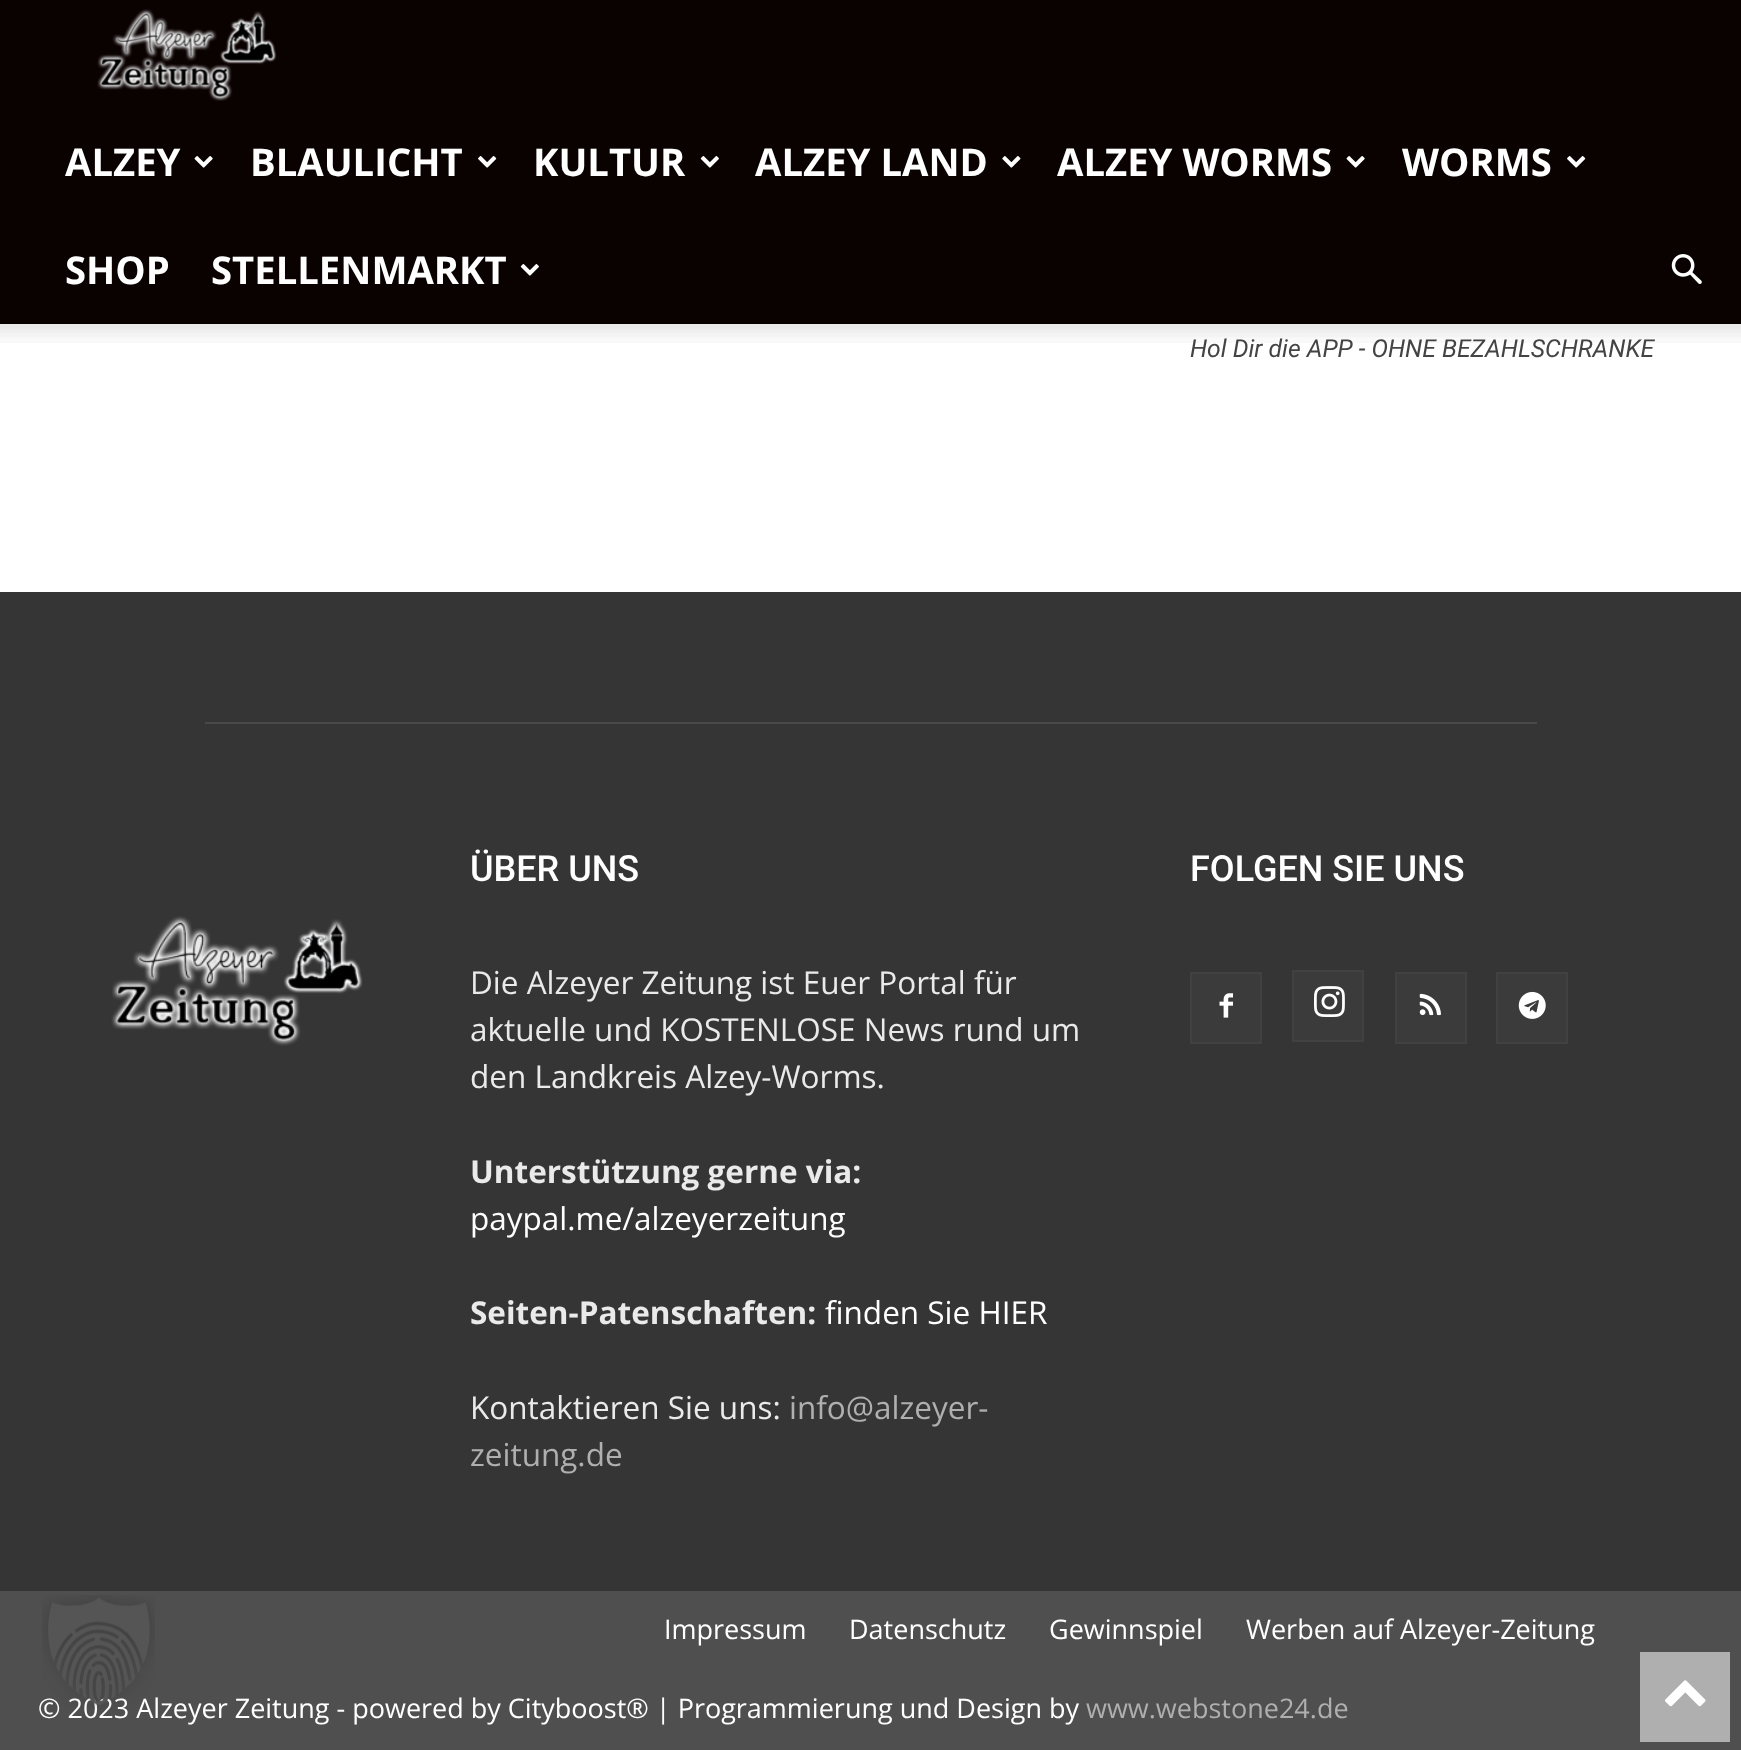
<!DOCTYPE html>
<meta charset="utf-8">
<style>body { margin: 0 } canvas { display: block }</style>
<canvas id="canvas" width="1741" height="1750"></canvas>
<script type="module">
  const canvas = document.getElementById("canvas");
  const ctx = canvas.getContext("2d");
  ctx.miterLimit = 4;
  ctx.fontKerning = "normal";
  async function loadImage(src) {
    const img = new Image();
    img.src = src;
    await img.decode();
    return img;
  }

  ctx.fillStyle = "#ffffff";
  ctx.fillRect(0, 0, 1741, 1750);
  ctx.fillStyle = "#0a0101";
  ctx.fillRect(0, 0, 1741, 324);
  ctx.drawImage(await loadImage("img1.png"), 97, 9, 180, 92);
  ctx.font = "bold 38.25px Open Sans";
  ctx.fillStyle = "#ffffff";
  ctx.fillText("ALZEY", 65, 176);
  ctx.drawImage(await loadImage("img2.png"), 194, 156, 19, 12);
  ctx.fillText("BLAULICHT", 250, 176);
  ctx.drawImage(await loadImage("img3.png"), 478, 156, 19, 12);
  ctx.fillText("KULTUR", 533, 176);
  ctx.drawImage(await loadImage("img4.png"), 700, 156, 19, 12);
  ctx.fillText("ALZEY LAND", 755, 176);
  ctx.drawImage(await loadImage("img5.png"), 1002, 156, 19, 12);
  ctx.fillText("ALZEY WORMS", 1057, 176);
  ctx.drawImage(await loadImage("img2.png"), 1346, 156, 19, 12);
  ctx.fillText("WORMS", 1402, 176);
  ctx.drawImage(await loadImage("img3.png"), 1567, 156, 19, 12);
  ctx.fillText("SHOP", 65, 284);
  ctx.fillText("STELLENMARKT", 211, 284);
  ctx.drawImage(await loadImage("img4.png"), 520, 264, 19, 12);
  ctx.drawImage(await loadImage("img6.png"), 1671, 254, 31, 30);
  ctx.font = "italic 24.75px Roboto";
  ctx.fillStyle = "#444444";
  ctx.fillText("Hol Dir die APP - OHNE BEZAHLSCHRANKE", 1190, 357);
  ctx.drawImage(await loadImage("img7.png"), 0, 324, 1741, 19);
  ctx.fillStyle = "#353535";
  ctx.fillRect(0, 592, 1741, 999);
  ctx.fillStyle = "#494949";
  ctx.fillRect(205, 722, 1332, 2);
  ctx.font = "500 36px Roboto";
  ctx.fillStyle = "#ffffff";
  ctx.fillText("ÜBER UNS", 470, 881);
  ctx.font = "31.5px Open Sans";
  ctx.fillStyle = "#eaeaea";
  ctx.fillText("Die Alzeyer Zeitung ist Euer Portal für", 470, 994);
  ctx.fillText("aktuelle und KOSTENLOSE News rund um", 470, 1041);
  ctx.fillText("den Landkreis Alzey-Worms.", 470, 1088);
  ctx.font = "bold 31.5px Open Sans";
  ctx.fillText("Unterstützung gerne via:", 470, 1183);
  ctx.font = "31.5px Open Sans";
  ctx.fillStyle = "#ffffff";
  ctx.fillText("paypal.me/alzeyerzeitung", 470, 1230);
  ctx.font = "bold 31.5px Open Sans";
  ctx.fillStyle = "#eaeaea";
  ctx.fillText("Seiten-Patenschaften:", 470, 1324);
  ctx.font = "31.5px Open Sans";
  ctx.fillStyle = "#ffffff";
  ctx.fillText("finden Sie HIER", 825, 1324);
  ctx.fillStyle = "#eaeaea";
  ctx.fillText("Kontaktieren Sie uns:", 470, 1419);
  ctx.fillStyle = "#afafaf";
  ctx.fillText("info@alzeyer-", 789, 1419);
  ctx.fillText("zeitung.de", 470, 1466);
  ctx.font = "500 36px Roboto";
  ctx.fillStyle = "#ffffff";
  ctx.fillText("FOLGEN SIE UNS", 1190, 881);
  ctx.fillStyle = "#3b3b3b";
  ctx.fillRect(1192, 974, 68, 68);
  ctx.drawImage(await loadImage("img8.png"), 1219, 993, 14, 25);
  ctx.strokeStyle = "#414141";
  ctx.lineWidth = 2;
  ctx.strokeRect(1191, 973, 70, 70);
  ctx.fillRect(1294, 972, 68, 68);
  ctx.drawImage(await loadImage("img9.png"), 1314, 986, 31, 31);
  ctx.strokeRect(1293, 971, 70, 70);
  ctx.fillRect(1397, 974, 68, 68);
  ctx.drawImage(await loadImage("img10.png"), 1419, 993, 22, 23);
  ctx.strokeRect(1396, 973, 70, 70);
  ctx.fillRect(1498, 974, 68, 68);
  ctx.drawImage(await loadImage("img11.png"), 1518, 991, 28, 28);
  ctx.strokeRect(1497, 973, 70, 70);
  ctx.drawImage(await loadImage("img12.png"), 111, 916, 252, 130);
  ctx.fillStyle = "#4f4f4f";
  ctx.fillRect(0, 1591, 1741, 159);
  ctx.font = "27px Open Sans";
  ctx.fillStyle = "#ffffff";
  ctx.fillText("Impressum", 664, 1639);
  ctx.fillText("Datenschutz", 849, 1639);
  ctx.fillText("Gewinnspiel", 1049, 1639);
  ctx.fillText("Werben auf Alzeyer-Zeitung", 1246, 1639);
  ctx.fillText("© 2023 Alzeyer Zeitung - powered by Cityboost® | Programmierung und Design by", 38, 1718);
  ctx.fillStyle = "#afafaf";
  ctx.fillText("www.webstone24.de", 1086, 1718);
  ctx.drawImage(await loadImage("img13.png"), 42, 1595, 113, 115);
  ctx.fillRect(1640, 1652, 90, 90);
  ctx.drawImage(await loadImage("img14.png"), 1665, 1680, 41, 27);
</script>
